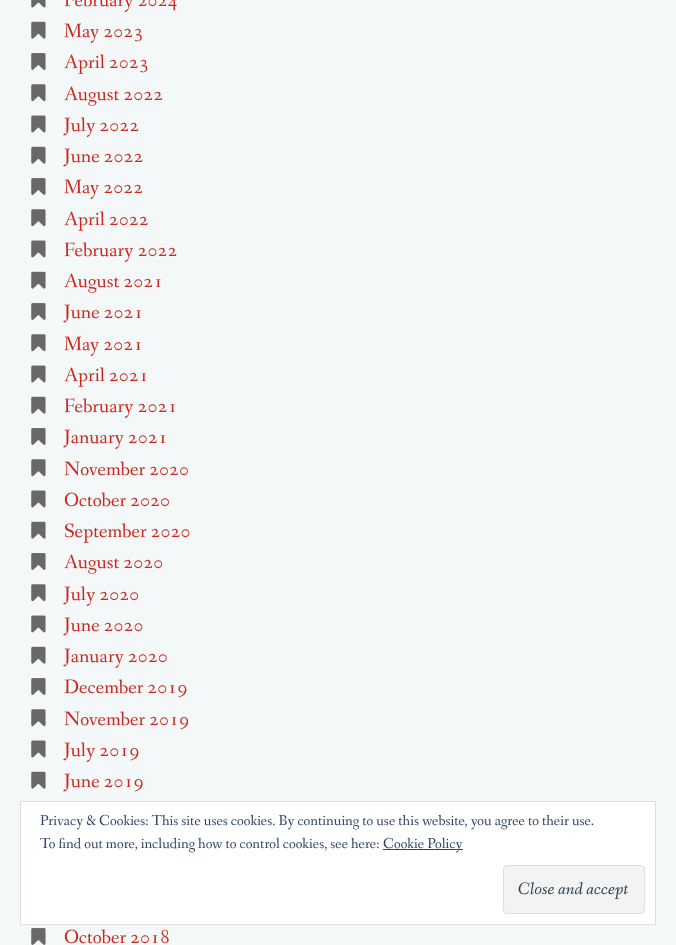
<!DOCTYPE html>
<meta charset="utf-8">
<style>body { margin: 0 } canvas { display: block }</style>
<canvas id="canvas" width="676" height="945"></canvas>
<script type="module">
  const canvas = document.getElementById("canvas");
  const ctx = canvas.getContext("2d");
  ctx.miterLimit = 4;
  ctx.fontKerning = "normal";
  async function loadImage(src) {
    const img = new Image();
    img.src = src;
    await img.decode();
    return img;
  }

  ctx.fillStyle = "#f5f8f8";
  ctx.fillRect(0, 0, 676, 945);
  ctx.drawImage(await loadImage("img1.png"), 31, 0, 15, 8);
  ctx.font = "20px Fanwood Text";
  ctx.fillStyle = "#ca281f";
  ctx.fillText("February 2024", 64, 6);
  ctx.drawImage(await loadImage("img2.png"), 31, 21, 15, 18);
  ctx.fillText("May 2023", 64, 37);
  ctx.drawImage(await loadImage("img3.png"), 31, 53, 15, 17);
  ctx.fillText("April 2023", 64, 68);
  ctx.drawImage(await loadImage("img4.png"), 31, 84, 15, 18);
  ctx.fillText("August 2022", 64, 100);
  ctx.drawImage(await loadImage("img5.png"), 31, 115, 15, 18);
  ctx.fillText("July 2022", 64, 131);
  ctx.drawImage(await loadImage("img2.png"), 31, 146, 15, 18);
  ctx.fillText("June 2022", 64, 162);
  ctx.drawImage(await loadImage("img3.png"), 31, 178, 15, 17);
  ctx.fillText("May 2022", 64, 193);
  ctx.drawImage(await loadImage("img4.png"), 31, 209, 15, 18);
  ctx.fillText("April 2022", 64, 225);
  ctx.drawImage(await loadImage("img5.png"), 31, 240, 15, 18);
  ctx.fillText("February 2022", 64, 256);
  ctx.drawImage(await loadImage("img2.png"), 31, 271, 15, 18);
  ctx.fillText("August 2021", 64, 287);
  ctx.drawImage(await loadImage("img3.png"), 31, 303, 15, 17);
  ctx.fillText("June 2021", 64, 318);
  ctx.drawImage(await loadImage("img4.png"), 31, 334, 15, 18);
  ctx.fillText("May 2021", 64, 350);
  ctx.drawImage(await loadImage("img5.png"), 31, 365, 15, 18);
  ctx.fillText("April 2021", 64, 381);
  ctx.drawImage(await loadImage("img2.png"), 31, 396, 15, 18);
  ctx.fillText("February 2021", 64, 412);
  ctx.drawImage(await loadImage("img3.png"), 31, 428, 15, 17);
  ctx.fillText("January 2021", 64, 443);
  ctx.drawImage(await loadImage("img4.png"), 31, 459, 15, 18);
  ctx.fillText("November 2020", 64, 475);
  ctx.drawImage(await loadImage("img5.png"), 31, 490, 15, 18);
  ctx.fillText("October 2020", 64, 506);
  ctx.drawImage(await loadImage("img2.png"), 31, 521, 15, 18);
  ctx.fillText("September 2020", 64, 537);
  ctx.drawImage(await loadImage("img3.png"), 31, 553, 15, 17);
  ctx.fillText("August 2020", 64, 568);
  ctx.drawImage(await loadImage("img4.png"), 31, 584, 15, 18);
  ctx.fillText("July 2020", 64, 600);
  ctx.drawImage(await loadImage("img5.png"), 31, 615, 15, 18);
  ctx.fillText("June 2020", 64, 631);
  ctx.drawImage(await loadImage("img2.png"), 31, 646, 15, 18);
  ctx.fillText("January 2020", 64, 662);
  ctx.drawImage(await loadImage("img3.png"), 31, 678, 15, 17);
  ctx.fillText("December 2019", 64, 693);
  ctx.drawImage(await loadImage("img4.png"), 31, 709, 15, 18);
  ctx.fillText("November 2019", 64, 725);
  ctx.drawImage(await loadImage("img5.png"), 31, 740, 15, 18);
  ctx.fillText("July 2019", 64, 756);
  ctx.drawImage(await loadImage("img2.png"), 31, 771, 15, 18);
  ctx.fillText("June 2019", 64, 787);
  ctx.drawImage(await loadImage("img3.png"), 31, 928, 15, 17);
  ctx.fillText("October 2018", 64, 943);
  ctx.fillStyle = "#ffffff";
  ctx.beginPath();
  ctx.rect(20.5, 801.5, 635, 123);
  ctx.fill();
  ctx.strokeStyle = "#dedede";
  ctx.stroke();
  ctx.font = "15px Fanwood Text";
  ctx.fillStyle = "#2e4467";
  ctx.fillText("Privacy & Cookies: This site uses cookies. By continuing to use this website, you agree to their use.", 40, 825);
  ctx.fillText("To find out more, including how to control cookies, see here:", 40, 848);
  ctx.fillRect(383, 849, 80, 1);
  ctx.fillText("Cookie Policy", 383, 848);
  ctx.fillStyle = "#f3f3f3";
  ctx.beginPath();
  ctx.roundRect(503.5, 865.5, 141, 48, 3.5);
  ctx.fill();
  ctx.stroke();
  ctx.font = "italic 17.5px Fanwood Text";
  ctx.fillStyle = "#2e4453";
  ctx.fillText("Close and accept", 518, 894);
</script>
